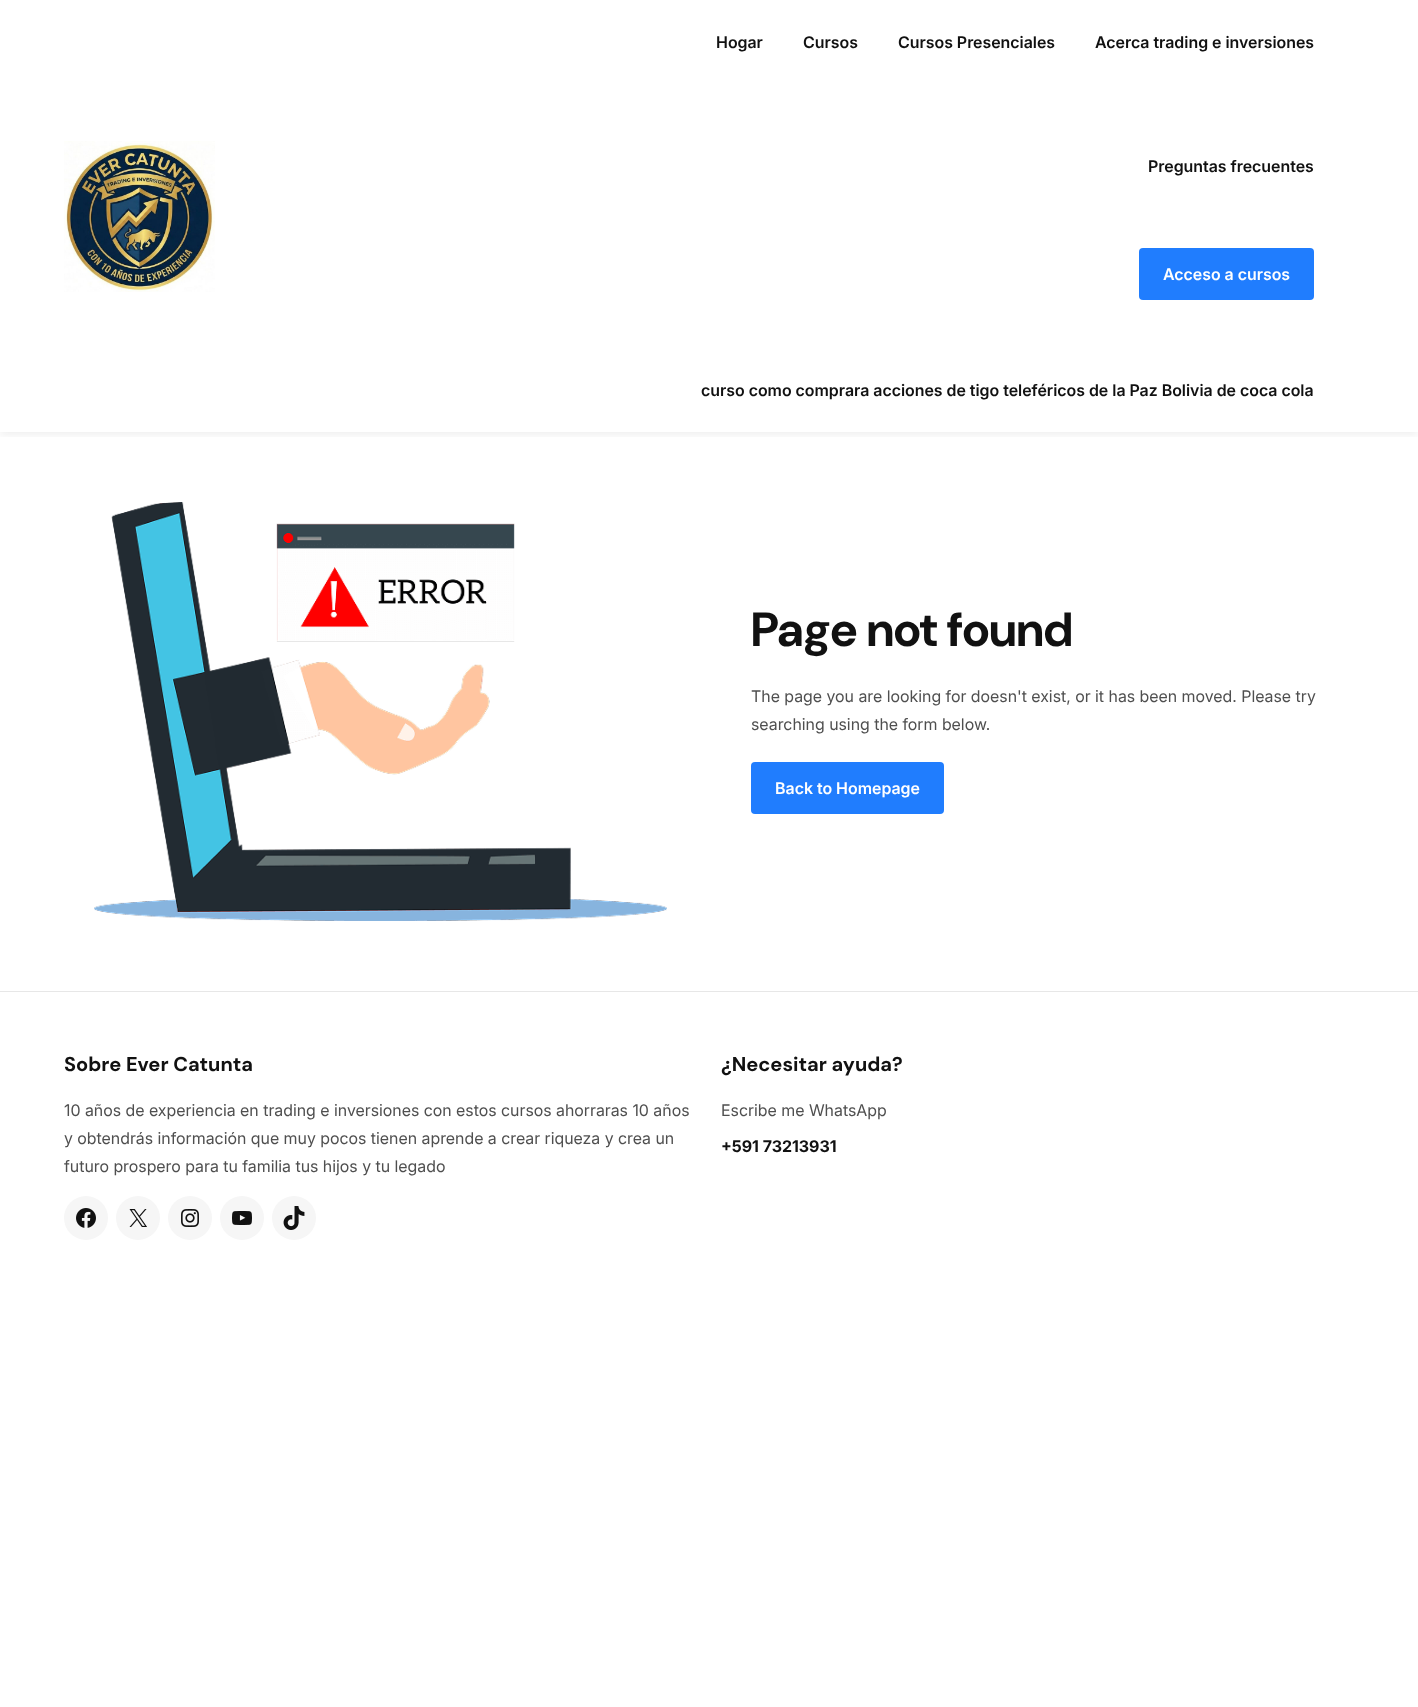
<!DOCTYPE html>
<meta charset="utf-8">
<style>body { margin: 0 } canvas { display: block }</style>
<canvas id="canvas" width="1418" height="1707"></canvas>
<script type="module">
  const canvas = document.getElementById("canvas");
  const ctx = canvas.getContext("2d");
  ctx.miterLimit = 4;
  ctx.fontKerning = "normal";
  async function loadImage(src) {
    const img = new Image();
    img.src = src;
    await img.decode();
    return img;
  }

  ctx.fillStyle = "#ffffff";
  ctx.fillRect(0, 0, 1418, 1707);
  ctx.save();
  ctx.beginPath();
  ctx.rect(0, 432, 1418, 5);
  ctx.clip();
  ctx.fillStyle = "rgba(17, 17, 17, 0.08)";
  ctx.filter = "blur(4px)";
  ctx.beginPath();
  ctx.rect(0, 2, 1418, 432);
  ctx.fill();
  ctx.filter = "none";
  ctx.restore();
  ctx.drawImage(await loadImage("img1.png"), 64, 141, 151, 151);
  ctx.font = "600 16px Inter";
  ctx.fillStyle = "#111111";
  ctx.fillText("Hogar", 716, 48);
  ctx.fillText("Cursos", 803, 48);
  ctx.fillText("Cursos Presenciales", 898, 48);
  ctx.fillText("Acerca trading e inversiones", 1095, 48);
  ctx.fillText("Preguntas frecuentes", 1148, 172);
  ctx.fillStyle = "#207dfe";
  ctx.beginPath();
  ctx.roundRect(1139, 248, 175, 52, 4);
  ctx.fill();
  ctx.fillStyle = "#ffffff";
  ctx.fillText("Acceso a cursos", 1163, 280);
  ctx.fillStyle = "#111111";
  ctx.fillText("curso como comprara acciones de tigo teleféricos de la Paz Bolivia de coca cola", 701, 396);
  ctx.drawImage(await loadImage("img2.png"), 94, 502, 573, 419);
  ctx.font = "bold 48px DM Sans";
  ctx.fillText("Page not found", 751, 646);
  ctx.font = "16px Inter";
  ctx.fillStyle = "#4f4f4f";
  ctx.fillText("The page you are looking for doesn't exist, or it has been moved. Please try", 751, 702);
  ctx.fillText("searching using the form below.", 751, 730);
  ctx.fillStyle = "#207dfe";
  ctx.beginPath();
  ctx.roundRect(751, 762, 193, 52, 4);
  ctx.fill();
  ctx.font = "600 16px Inter";
  ctx.fillStyle = "#ffffff";
  ctx.fillText("Back to Homepage", 775, 794);
  ctx.fillStyle = "#e7e7e7";
  ctx.fillRect(0, 991, 1418, 1);
  ctx.font = "bold 20px 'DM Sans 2'";
  ctx.fillStyle = "#111111";
  ctx.fillText("Sobre Ever Catunta", 64, 1071);
  ctx.font = "16px Inter";
  ctx.fillStyle = "#4f4f4f";
  ctx.fillText("10 años de experiencia en trading e inversiones con estos cursos ahorraras 10 años", 64, 1116);
  ctx.fillText("y obtendrás información que muy pocos tienen aprende a crear riqueza y crea un", 64, 1144);
  ctx.fillText("futuro prospero para tu familia tus hijos y tu legado", 64, 1172);
  ctx.fillStyle = "#f6f6f6";
  ctx.beginPath();
  ctx.arc(86, 1218, 22, 0, Math.PI * 2);
  ctx.fill();
  ctx.drawImage(await loadImage("img3.png"), 76, 1208, 20, 20);
  ctx.beginPath();
  ctx.arc(138, 1218, 22, 0, Math.PI * 2);
  ctx.fill();
  ctx.drawImage(await loadImage("img4.png"), 129, 1209, 18, 18);
  ctx.beginPath();
  ctx.arc(190, 1218, 22, 0, Math.PI * 2);
  ctx.fill();
  ctx.drawImage(await loadImage("img5.png"), 181, 1209, 18, 18);
  ctx.beginPath();
  ctx.arc(242, 1218, 22, 0, Math.PI * 2);
  ctx.fill();
  ctx.drawImage(await loadImage("img6.png"), 232, 1211, 20, 14);
  ctx.beginPath();
  ctx.arc(294, 1218, 22, 0, Math.PI * 2);
  ctx.fill();
  ctx.drawImage(await loadImage("img7.png"), 283, 1206, 22, 24);
  ctx.font = "bold 20px 'DM Sans 2'";
  ctx.fillStyle = "#111111";
  ctx.fillText("¿Necesitar ayuda?", 721, 1071);
  ctx.font = "16px Inter";
  ctx.fillStyle = "#4f4f4f";
  ctx.fillText("Escribe me WhatsApp", 721, 1116);
  ctx.font = "bold 16px Inter";
  ctx.fillStyle = "#111111";
  ctx.fillText("+591 73213931", 721, 1152);
</script>
